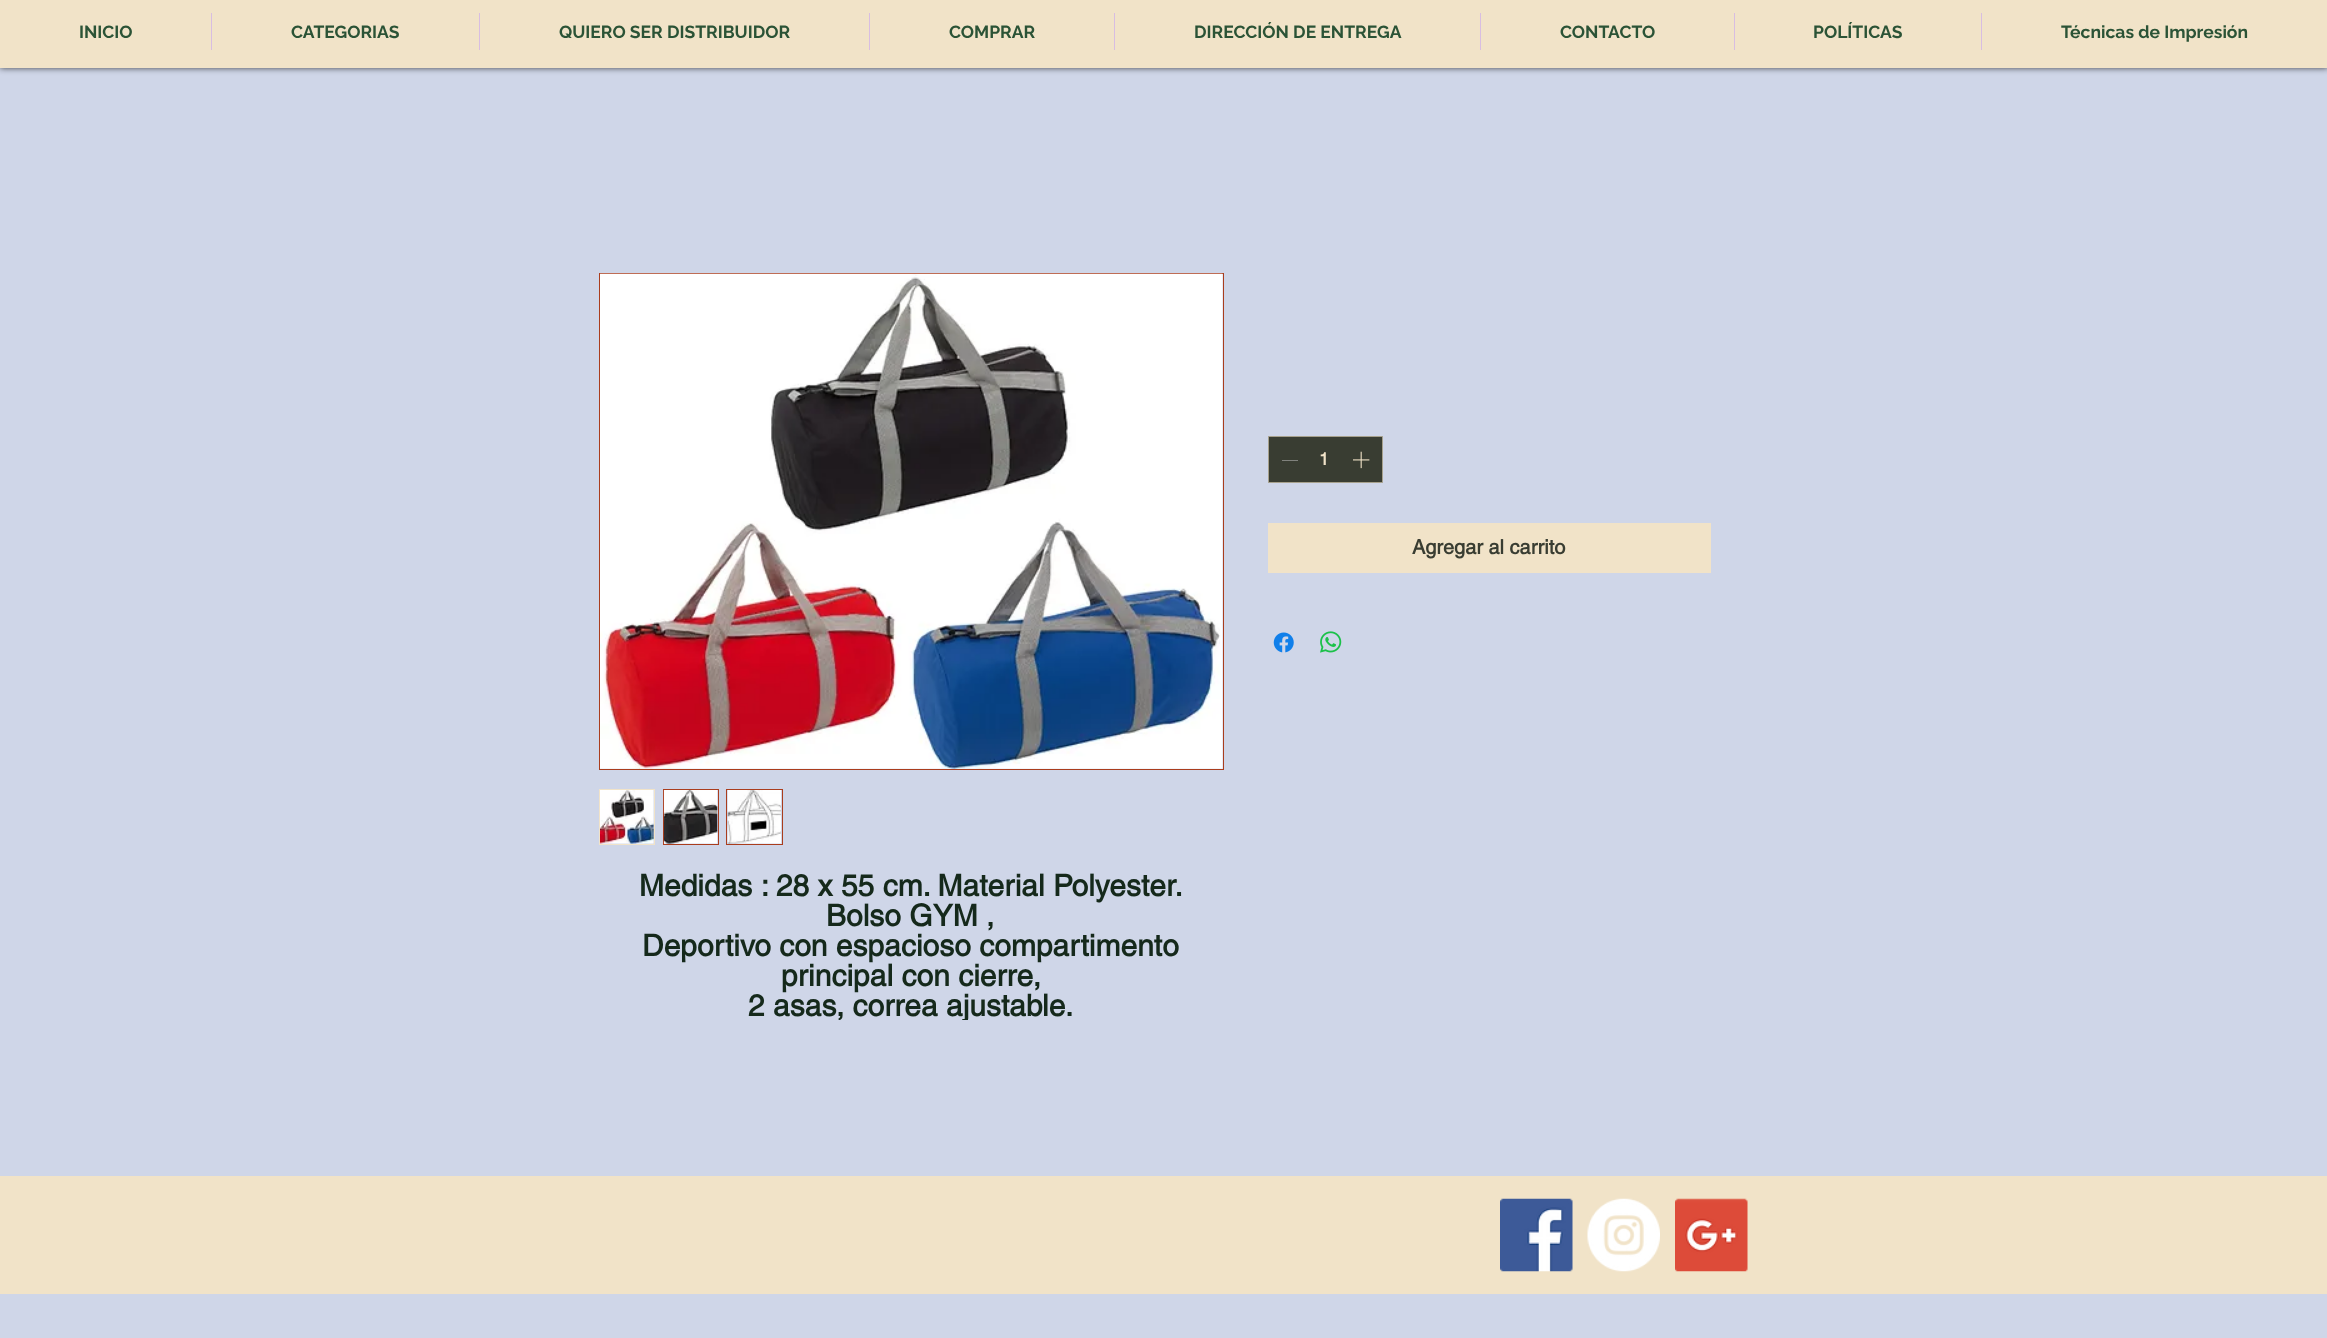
<!DOCTYPE html>
<meta charset="utf-8">
<style>body { margin: 0 } canvas { display: block }</style>
<canvas id="canvas" width="2327" height="1338"></canvas>
<script type="module">
  const canvas = document.getElementById("canvas");
  const ctx = canvas.getContext("2d");
  ctx.miterLimit = 4;
  ctx.fontKerning = "normal";
  async function loadImage(src) {
    const img = new Image();
    img.src = src;
    await img.decode();
    return img;
  }

  ctx.fillStyle = "#cfd6e8";
  ctx.fillRect(0, 0, 2327, 1338);
  ctx.fillStyle = "rgba(0, 0, 0, 0.7)";
  ctx.filter = "blur(3px)";
  ctx.beginPath();
  ctx.rect(0, 0, 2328, 68);
  ctx.fill();
  ctx.filter = "none";
  ctx.fillStyle = "#f1e3c8";
  ctx.fillRect(0, 0, 2327, 68);
  ctx.font = "bold 17.5px Raleway";
  ctx.fillStyle = "#2b5336";
  ctx.fillText("INICIO", 79, 38);
  ctx.fillStyle = "#d8bde2";
  ctx.fillRect(211, 13, 1, 37);
  ctx.fillStyle = "#2b5336";
  ctx.fillText("CATEGORIAS", 291, 38);
  ctx.fillStyle = "#d8bde2";
  ctx.fillRect(479, 13, 1, 37);
  ctx.fillStyle = "#2b5336";
  ctx.fillText("QUIERO SER DISTRIBUIDOR", 559, 38);
  ctx.fillStyle = "#d8bde2";
  ctx.fillRect(869, 13, 1, 37);
  ctx.fillStyle = "#2b5336";
  ctx.fillText("COMPRAR", 949, 38);
  ctx.fillStyle = "#d8bde2";
  ctx.fillRect(1114, 13, 1, 37);
  ctx.fillStyle = "#2b5336";
  ctx.fillText("DIRECCIÓN DE ENTREGA", 1194, 38);
  ctx.fillStyle = "#d8bde2";
  ctx.fillRect(1480, 13, 1, 37);
  ctx.fillStyle = "#2b5336";
  ctx.fillText("CONTACTO", 1560, 38);
  ctx.fillStyle = "#d8bde2";
  ctx.fillRect(1734, 13, 1, 37);
  ctx.fillStyle = "#2b5336";
  ctx.fillText("POLÍTICAS", 1813, 38);
  ctx.fillStyle = "#d8bde2";
  ctx.fillRect(1981, 13, 1, 37);
  ctx.fillStyle = "#2b5336";
  ctx.fillText("Técnicas de Impresión", 2061, 38);
  ctx.fillStyle = "#393d32";
  ctx.beginPath();
  ctx.rect(1268.5, 436.5, 114, 46);
  ctx.fill();
  ctx.strokeStyle = "#a7a18c";
  ctx.stroke();
  ctx.fillStyle = "#80827d";
  ctx.fillRect(1282, 460, 16, 1);
  ctx.font = "bold 17.5px helvetica";
  ctx.fillStyle = "#f1e3c8";
  ctx.fillText("1", 1319, 465);
  ctx.drawImage(await loadImage("img1.png"), 1353, 451, 17, 18);
  ctx.fillRect(1268, 523, 443, 50);
  ctx.font = "bold 20px helvetica";
  ctx.fillStyle = "#393d32";
  ctx.fillText("Agregar al carrito", 1412, 554);
  ctx.drawImage(await loadImage("img2.png"), 1273, 632, 21, 21);
  ctx.drawImage(await loadImage("img3.png"), 1320, 631, 22, 22);
  ctx.strokeStyle = "#aa3d1d";
  ctx.strokeRect(599.5, 273.5, 624, 496);
  ctx.drawImage(await loadImage("img4.png"), 600, 273, 623, 496);
  ctx.strokeStyle = "#f1e3c8";
  ctx.strokeRect(599.5, 789.5, 55, 55);
  ctx.drawImage(await loadImage("img5.png"), 600, 790, 54, 54);
  ctx.strokeStyle = "#aa3d1d";
  ctx.strokeRect(663.5, 789.5, 55, 55);
  ctx.drawImage(await loadImage("img6.png"), 663, 790, 55, 54);
  ctx.strokeRect(726.5, 789.5, 56, 55);
  ctx.drawImage(await loadImage("img7.png"), 727, 790, 54, 54);
  ctx.font = "bold 30px helvetica";
  ctx.fillStyle = "#15291b";
  ctx.fillText("Medidas : 28 x 55 cm. Material Polyester.", 639, 896);
  ctx.fillText("Bolso GYM ,", 826, 926);
  ctx.fillText("Deportivo con espacioso compartimento", 642, 956);
  ctx.fillText("principal con cierre,", 781, 986);
  ctx.save();
  ctx.beginPath();
  ctx.rect(599, 870, 625, 150);
  ctx.clip();
  ctx.fillText("2 asas, correa ajustable.", 748, 1016);
  ctx.restore();
  ctx.fillStyle = "#f1e3c8";
  ctx.fillRect(0, 1176, 2327, 118);
  ctx.drawImage(await loadImage("img8.png"), 1500, 1198, 73, 74);
  ctx.drawImage(await loadImage("img9.png"), 1587, 1198, 73, 74);
  ctx.drawImage(await loadImage("img10.png"), 1675, 1198, 73, 74);
</script>
